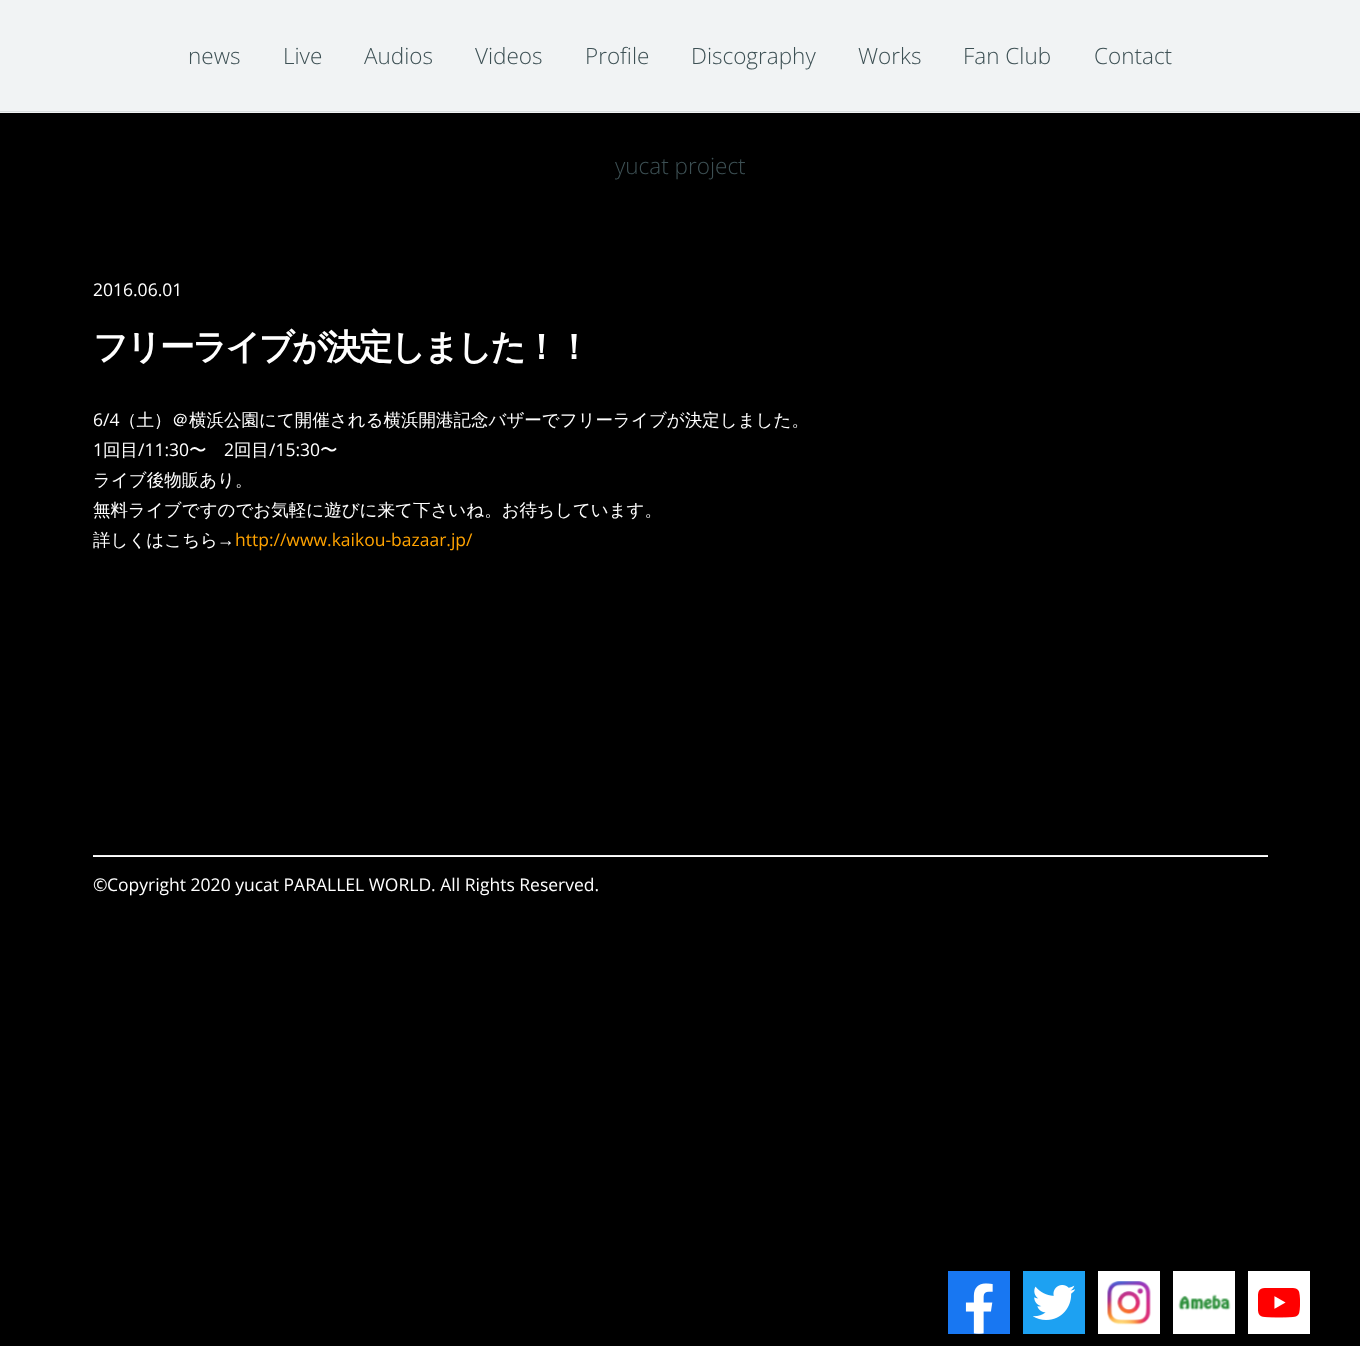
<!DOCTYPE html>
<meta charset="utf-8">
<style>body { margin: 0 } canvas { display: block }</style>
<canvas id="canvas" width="1360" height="1346"></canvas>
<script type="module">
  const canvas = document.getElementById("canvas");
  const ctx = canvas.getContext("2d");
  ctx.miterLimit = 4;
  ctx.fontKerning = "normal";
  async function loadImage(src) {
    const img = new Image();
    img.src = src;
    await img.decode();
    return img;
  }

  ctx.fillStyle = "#000000";
  ctx.fillRect(0, 0, 1360, 1346);
  ctx.fillStyle = "#f1f3f4";
  ctx.fillRect(0, 0, 1360, 113);
  ctx.fillStyle = "#d7dbdc";
  ctx.fillRect(0, 111, 1360, 1);
  ctx.font = "300 22.5px Open Sans";
  ctx.fillStyle = "#3d5054";
  ctx.fillText("news", 188, 64);
  ctx.fillText("Live", 283, 64);
  ctx.fillText("Audios", 364, 64);
  ctx.fillText("Videos", 475, 64);
  ctx.fillText("Profile", 585, 64);
  ctx.fillText("Discography", 691, 64);
  ctx.fillText("Works", 858, 64);
  ctx.fillText("Fan Club", 963, 64);
  ctx.fillText("Contact", 1094, 64);
  ctx.fillText("yucat project", 615, 174);
  ctx.font = "17.5px 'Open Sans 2'";
  ctx.fillStyle = "#ffffff";
  ctx.fillText("2016.06.01", 93, 296);
  ctx.letterSpacing = "-2.5px";
  ctx.font = "bold 35px WenQuanYi Zen Hei";
  ctx.fillText("フリーライブが決定しました！！", 93, 359);
  ctx.letterSpacing = "0px";
  ctx.font = "17.5px 'Open Sans 2'";
  ctx.fillText("6/4", 93, 426);
  ctx.font = "500 17.5px WenQuanYi Zen Hei";
  ctx.fillText("（土）＠横浜公園にて開催される横浜開港記念バザーでフリーライブが決定しました。", 119, 426);
  ctx.font = "17.5px 'Open Sans 2'";
  ctx.fillText("1", 93, 456);
  ctx.font = "500 17.5px WenQuanYi Zen Hei";
  ctx.fillText("回目", 103, 456);
  ctx.font = "17.5px 'Open Sans 2'";
  ctx.fillText("/11:30", 138, 456);
  ctx.font = "500 17.5px WenQuanYi Zen Hei";
  ctx.fillText("〜", 189, 456);
  ctx.font = "17.5px 'Open Sans 2'";
  ctx.fillText("2", 224, 456);
  ctx.font = "500 17.5px WenQuanYi Zen Hei";
  ctx.fillText("回目", 234, 456);
  ctx.font = "17.5px 'Open Sans 2'";
  ctx.fillText("/15:30", 269, 456);
  ctx.font = "500 17.5px WenQuanYi Zen Hei";
  ctx.fillText("〜", 320, 456);
  ctx.fillText("ライブ後物販あり。", 93, 486);
  ctx.fillText("無料ライブですのでお気軽に遊びに来て下さいね。お待ちしています。", 93, 516);
  ctx.fillText("詳しくはこちら", 93, 546);
  ctx.font = "17.5px Liberation Sans";
  ctx.fillText("→", 217, 546);
  ctx.font = "17.5px 'Open Sans 2'";
  ctx.fillStyle = "#ffa300";
  ctx.fillText("http://www.kaikou-bazaar.jp/", 235, 546);
  ctx.fillStyle = "#eeeeee";
  ctx.fillRect(93, 855, 1175, 1);
  ctx.fillStyle = "#ffffff";
  ctx.fillRect(93, 856, 1175, 1);
  ctx.font = "17.5px Open Sans";
  ctx.fillText("©", 93, 891);
  ctx.font = "17.5px 'Open Sans 2'";
  ctx.fillText("Copyright 2020 yucat PARALLEL WORLD. All Rights Reserved.", 107, 891);
  ctx.fillStyle = "#1877f2";
  ctx.fillRect(948, 1271, 62, 63);
  ctx.drawImage(await loadImage("img1.png"), 965, 1283, 28, 51);
  ctx.fillStyle = "#1da1f2";
  ctx.fillRect(1023, 1271, 62, 63);
  ctx.drawImage(await loadImage("img2.png"), 1033, 1285, 42, 35);
  ctx.fillStyle = "#ffffff";
  ctx.fillRect(1098, 1271, 62, 63);
  ctx.drawImage(await loadImage("img3.png"), 1107, 1281, 44, 44);
  ctx.fillRect(1173, 1271, 62, 63);
  ctx.drawImage(await loadImage("img4.png"), 1178, 1294, 53, 17);
  ctx.fillRect(1248, 1271, 62, 63);
  ctx.drawImage(await loadImage("img5.png"), 1258, 1288, 42, 30);
</script>
